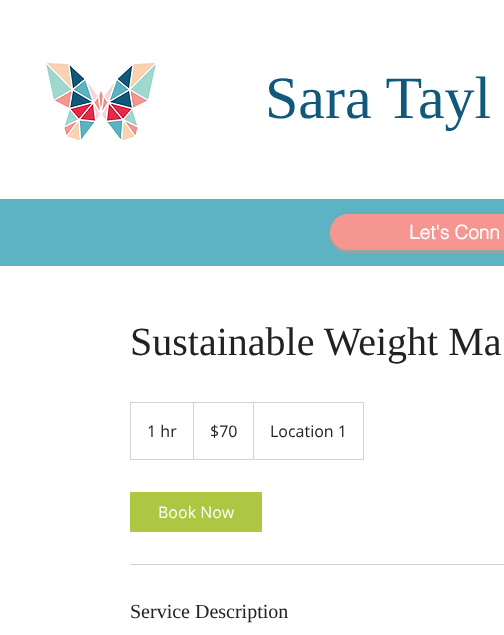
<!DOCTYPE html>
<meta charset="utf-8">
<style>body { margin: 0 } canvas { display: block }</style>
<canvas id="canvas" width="504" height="635"></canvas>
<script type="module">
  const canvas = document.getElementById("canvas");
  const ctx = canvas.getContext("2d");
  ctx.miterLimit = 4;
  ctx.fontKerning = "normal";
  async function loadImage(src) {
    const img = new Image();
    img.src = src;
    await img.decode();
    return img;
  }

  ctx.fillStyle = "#ffffff";
  ctx.fillRect(0, 0, 504, 635);
  ctx.drawImage(await loadImage("img1.png"), 46, 62, 110, 79);
  ctx.font = "60px Liberation Serif";
  ctx.fillStyle = "#11597b";
  ctx.fillText("Sara Tayl", 265, 118);
  ctx.fillStyle = "#5db3c3";
  ctx.fillRect(0, 199, 504, 67);
  ctx.fillStyle = "#96a5a1";
  ctx.beginPath();
  ctx.moveTo(330, 228);
  ctx.bezierCurveTo(330, 230, 329, 232, 329, 235);
  ctx.bezierCurveTo(329, 245, 337, 253, 347, 253);
  ctx.lineTo(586, 253);
  ctx.bezierCurveTo(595, 253, 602, 247, 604, 239);
  ctx.bezierCurveTo(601, 246, 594, 250, 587, 250);
  ctx.lineTo(348, 250);
  ctx.bezierCurveTo(338, 250, 330, 242, 330, 232);
  ctx.closePath();
  ctx.fill();
  ctx.fillStyle = "#f69691";
  ctx.beginPath();
  ctx.roundRect(330, 214, 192, 36, 18);
  ctx.fill();
  ctx.font = "bold 19px helvetica";
  ctx.fillStyle = "#ffffff";
  ctx.fillText("Let's Conn", 409, 239);
  ctx.font = "40px Liberation Serif";
  ctx.fillStyle = "#222222";
  ctx.fillText("Sustainable Weight Ma", 130, 355);
  ctx.strokeStyle = "#d3d3d3";
  ctx.strokeRect(130.5, 402.5, 233, 57);
  ctx.font = "16px Open Sans";
  ctx.fillText("1 hr", 147, 437);
  ctx.fillStyle = "#d3d3d3";
  ctx.beginPath();
  ctx.moveTo(193, 459);
  ctx.lineTo(193, 402);
  ctx.lineTo(194, 403);
  ctx.lineTo(194, 459);
  ctx.closePath();
  ctx.fill();
  ctx.fillStyle = "#222222";
  ctx.fillText("$70", 210, 437);
  ctx.fillStyle = "#d3d3d3";
  ctx.beginPath();
  ctx.moveTo(253, 459);
  ctx.lineTo(253, 402);
  ctx.lineTo(254, 403);
  ctx.lineTo(254, 459);
  ctx.closePath();
  ctx.fill();
  ctx.fillStyle = "#222222";
  ctx.fillText("Location 1", 270, 437);
  ctx.fillStyle = "#adc743";
  ctx.fillRect(130, 492, 132, 40);
  ctx.fillStyle = "#ffffff";
  ctx.fillText("Book Now", 158, 518);
  ctx.fillStyle = "#d3d3d3";
  ctx.fillRect(130, 564, 374, 1);
  ctx.font = "20px Liberation Serif";
  ctx.fillStyle = "#222222";
  ctx.fillText("Service Description", 130, 618);
</script>
